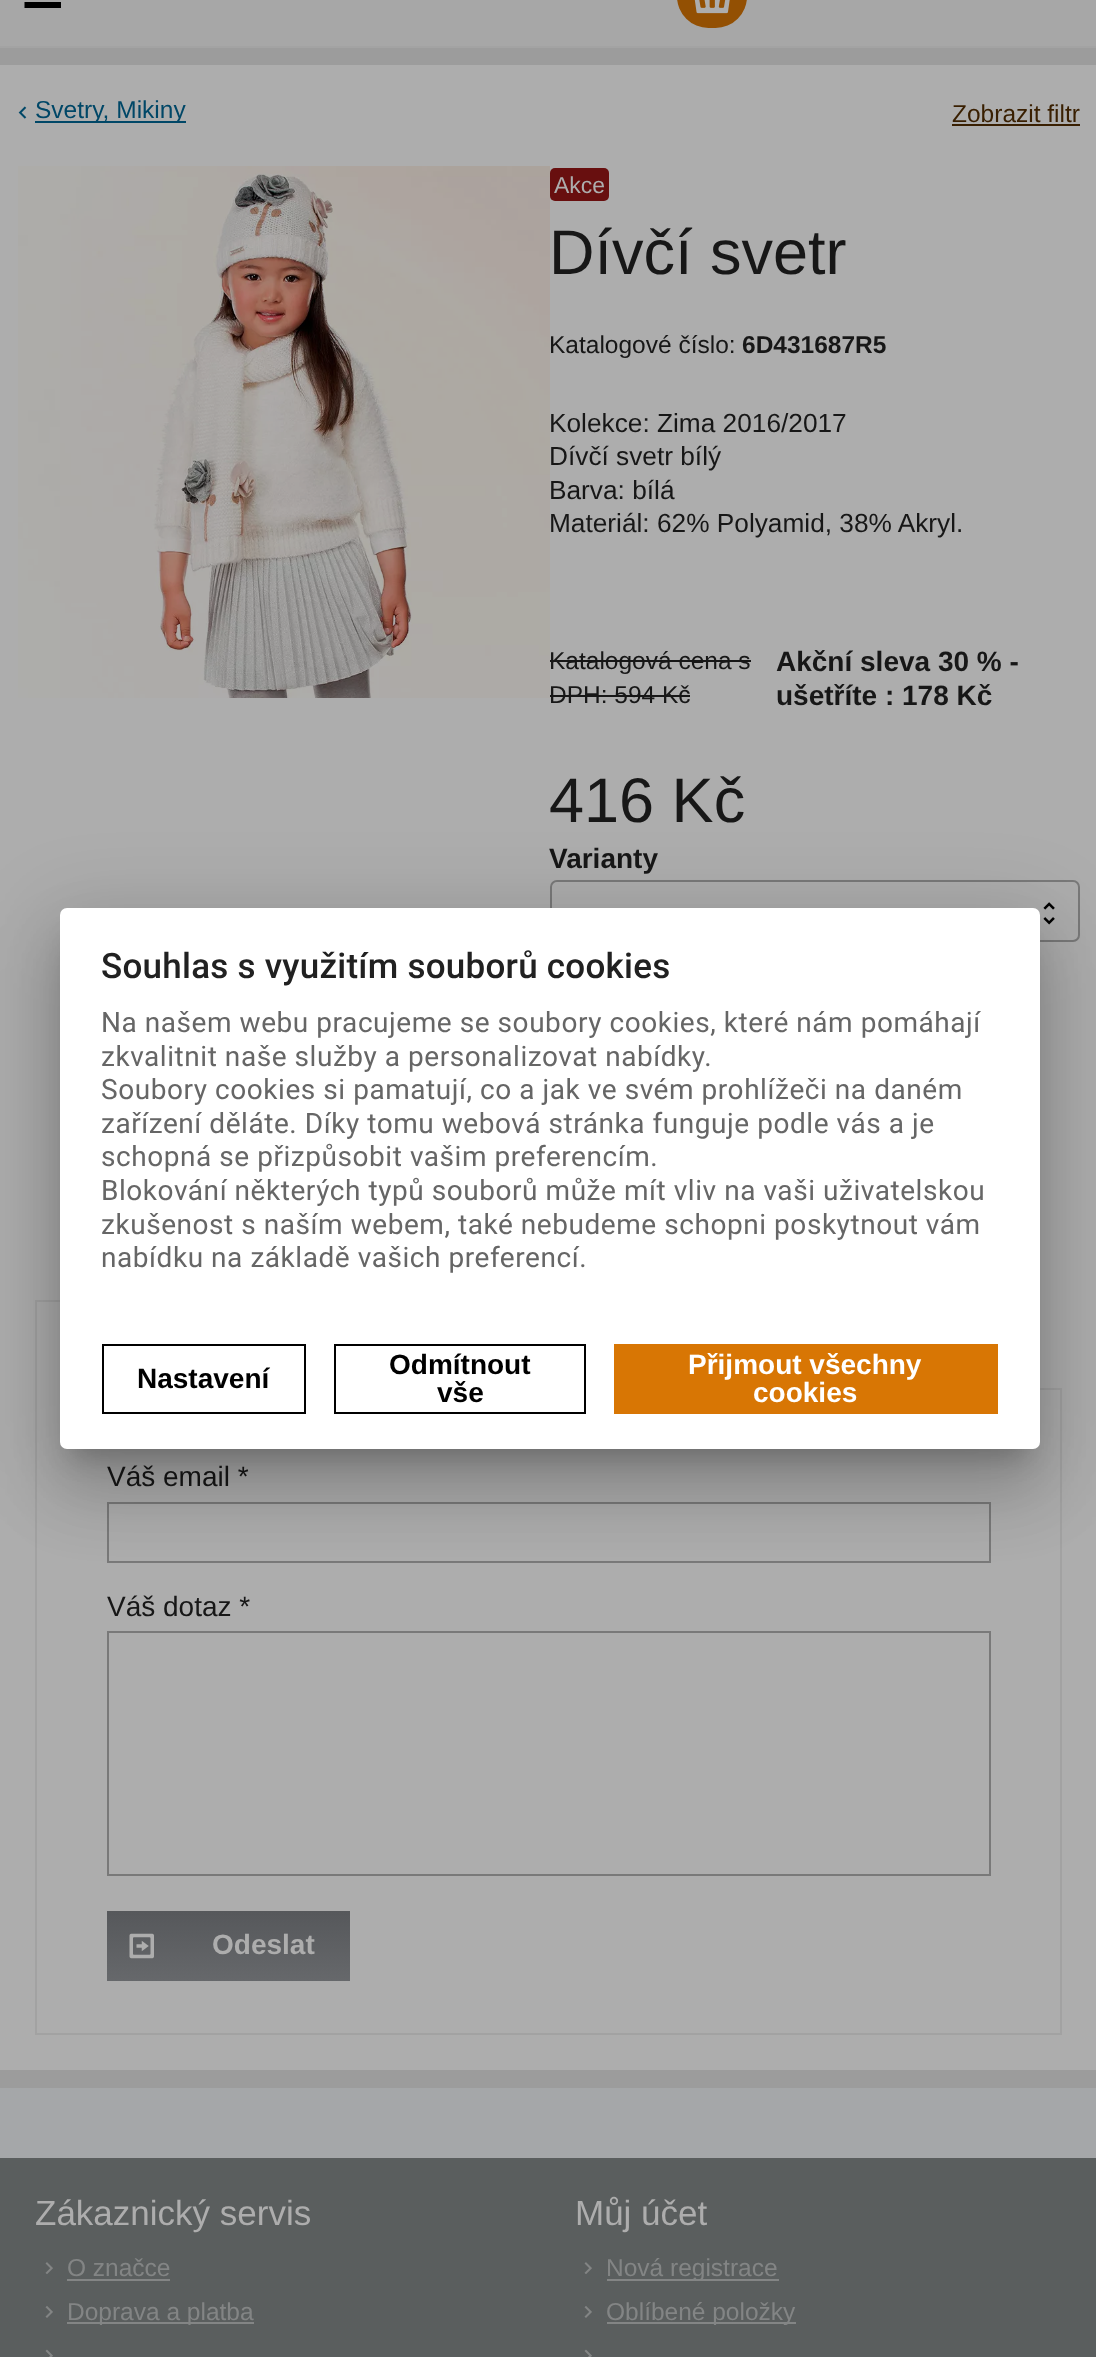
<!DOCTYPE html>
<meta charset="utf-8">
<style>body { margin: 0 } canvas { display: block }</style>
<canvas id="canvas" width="1096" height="2357"></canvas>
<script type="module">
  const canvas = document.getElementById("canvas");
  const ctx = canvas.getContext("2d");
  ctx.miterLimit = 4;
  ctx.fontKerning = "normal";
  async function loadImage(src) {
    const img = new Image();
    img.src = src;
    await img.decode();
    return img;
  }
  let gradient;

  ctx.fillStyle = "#adadad";
  ctx.fillRect(0, 0, 1096, 2357);
  ctx.fillStyle = "#a7a7a7";
  ctx.fillRect(0, 0, 1096, 46);
  ctx.fillStyle = "#a3a3a3";
  ctx.fillRect(0, 46, 1096, 2);
  ctx.fillStyle = "#000000";
  ctx.beginPath();
  ctx.moveTo(24.5, -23);
  ctx.lineTo(24.5, -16.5);
  ctx.lineTo(61, -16.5);
  ctx.lineTo(61, -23);
  ctx.closePath();
  ctx.moveTo(24.5, -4.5);
  ctx.lineTo(61, -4.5);
  ctx.lineTo(61, -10.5);
  ctx.lineTo(24.5, -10.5);
  ctx.closePath();
  ctx.moveTo(24.5, 8);
  ctx.lineTo(61, 8);
  ctx.lineTo(61, 2);
  ctx.lineTo(24.5, 2);
  ctx.closePath();
  ctx.fill();
  ctx.fillStyle = "#935003";
  ctx.beginPath();
  ctx.roundRect(677, -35, 70, 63, 35);
  ctx.fill();
  ctx.drawImage(await loadImage("img1.png"), 694, 0, 36, 14);
  ctx.fillStyle = "#9c9c9c";
  ctx.fillRect(0, 48, 1096, 17);
  ctx.fillRect(0, 2070, 1096, 18);
  ctx.drawImage(await loadImage("img2.png"), 18, 106, 9, 13);
  ctx.fillStyle = "#004767";
  ctx.fillRect(35, 121, 151, 2);
  ctx.font = "24.5px Liberation Sans";
  ctx.fillText("Svetry, Mikiny", 35, 118);
  ctx.drawImage(await loadImage("img3.png"), 18, 166, 532, 532);
  ctx.fillStyle = "#680f0f";
  ctx.beginPath();
  ctx.roundRect(550, 168, 59, 33, 5);
  ctx.fill();
  ctx.font = "23px Liberation Sans";
  ctx.fillStyle = "#adadad";
  ctx.fillText("Akce", 554, 193);
  ctx.font = "63px Liberation Sans";
  ctx.fillStyle = "#171717";
  ctx.fillText("Dívčí svetr", 549, 274);
  ctx.font = "24.5px Liberation Sans";
  ctx.fillText("Katalogové číslo:", 549, 353);
  ctx.font = "bold 24.5px Liberation Sans";
  ctx.fillText("6D431687R5", 742, 353);
  ctx.font = "26.25px Liberation Sans";
  ctx.fillText("Kolekce: Zima 2016/2017", 549, 432);
  ctx.fillText("Dívčí svetr bílý", 549, 465);
  ctx.fillText("Barva: bílá", 549, 499);
  ctx.fillText("Materiál: 62% Polyamid, 38% Akryl.", 549, 532);
  ctx.font = "24.5px Liberation Sans";
  ctx.fillText("Katalogová cena s", 549, 669);
  ctx.fillRect(550, 660, 201, 2);
  ctx.fillText("DPH: 594 Kč", 549, 703);
  ctx.fillRect(550, 695, 140, 2);
  ctx.font = "bold 28px Liberation Sans";
  ctx.fillText("Akční sleva 30 % -", 776, 671);
  ctx.fillText("ušetříte : 178 Kč", 776, 705);
  ctx.font = "63px Liberation Sans";
  ctx.fillText("416 Kč", 549, 822);
  ctx.font = "bold 28px Liberation Sans";
  ctx.fillText("Varianty", 549, 868);
  ctx.beginPath();
  ctx.roundRect(551, 881, 528, 60, 6);
  ctx.strokeStyle = "#797979";
  ctx.lineWidth = 2;
  ctx.stroke();
  ctx.drawImage(await loadImage("img4.png"), 1043, 902, 12, 23);
  ctx.fillStyle = "#a2a2a2";
  ctx.fillRect(35, 1300, 25, 2);
  ctx.fillRect(35, 1300, 2, 88);
  ctx.strokeStyle = "#a2a2a2";
  ctx.strokeRect(36, 1389, 1025, 645);
  ctx.fillStyle = "#adadad";
  ctx.fillRect(37, 1388, 23, 2);
  ctx.font = "28px Liberation Sans";
  ctx.fillStyle = "#171717";
  ctx.fillText("Váš email *", 107, 1486);
  ctx.strokeStyle = "#797979";
  ctx.strokeRect(108, 1503, 882, 59);
  ctx.fillText("Váš dotaz *", 107, 1616);
  ctx.strokeRect(108, 1632, 882, 243);
  gradient = ctx.createLinearGradient(228, 1981, 228, 1911);
  gradient.addColorStop(0, "#66686b");
  gradient.addColorStop(1, "#56585b");
  ctx.fillStyle = gradient;
  ctx.fillRect(107, 1911, 243, 70);
  ctx.drawImage(await loadImage("img5.png"), 129, 1933, 25, 26);
  ctx.font = "bold 28px Liberation Sans";
  ctx.fillStyle = "#adadad";
  ctx.fillText("Odeslat", 212, 1954);
  ctx.font = "24.5px Liberation Sans";
  ctx.fillStyle = "#391f01";
  ctx.fillText("Zobrazit filtr", 952, 122);
  ctx.fillRect(952, 124, 128, 2);
  ctx.fillStyle = "#a5a7a9";
  ctx.fillRect(0, 2088, 1096, 70);
  ctx.fillStyle = "#5a5e5e";
  ctx.fillRect(0, 2158, 1096, 199);
  ctx.font = "35px Liberation Sans";
  ctx.fillStyle = "#adadad";
  ctx.fillText("Zákaznický servis", 35, 2225);
  ctx.drawImage(await loadImage("img6.png"), 45, 2262, 8, 12);
  ctx.font = "24.5px Liberation Sans";
  ctx.fillStyle = "#838585";
  ctx.fillText("O značce", 67, 2276);
  ctx.fillRect(67, 2279, 103, 2);
  ctx.drawImage(await loadImage("img7.png"), 45, 2306, 8, 12);
  ctx.fillRect(67, 2322, 187, 2);
  ctx.fillText("Doprava a platba", 67, 2320);
  ctx.drawImage(await loadImage("img8.png"), 45, 2349, 8, 8);
  ctx.font = "35px Liberation Sans";
  ctx.fillStyle = "#adadad";
  ctx.fillText("Můj účet", 575, 2225);
  ctx.drawImage(await loadImage("img6.png"), 584, 2262, 8, 12);
  ctx.fillStyle = "#838585";
  ctx.fillRect(607, 2279, 172, 2);
  ctx.font = "24.5px Liberation Sans";
  ctx.fillText("Nová registrace", 606, 2276);
  ctx.drawImage(await loadImage("img7.png"), 584, 2306, 8, 12);
  ctx.fillRect(607, 2322, 189, 2);
  ctx.fillText("Oblíbené položky", 606, 2320);
  ctx.drawImage(await loadImage("img8.png"), 584, 2349, 8, 8);
  ctx.fillStyle = "rgba(0, 0, 0, 0.12)";
  ctx.filter = "blur(40px)";
  ctx.beginPath();
  ctx.roundRect(46, 910, 1008, 569, 21);
  ctx.fill();
  ctx.filter = "none";
  ctx.fillStyle = "rgba(0, 0, 0, 0.14)";
  ctx.filter = "blur(33px)";
  ctx.beginPath();
  ctx.roundRect(54, 945, 991, 551, 12);
  ctx.fill();
  ctx.filter = "none";
  ctx.fillStyle = "rgba(0, 0, 0, 0.2)";
  ctx.filter = "blur(13px)";
  ctx.beginPath();
  ctx.rect(72, 940, 955, 516);
  ctx.fill();
  ctx.filter = "none";
  ctx.fillStyle = "#ffffff";
  ctx.beginPath();
  ctx.roundRect(60, 908, 980, 541, 7);
  ctx.fill();
  ctx.letterSpacing = "0.25px";
  ctx.font = "500 35px Roboto";
  ctx.fillStyle = "#212121";
  ctx.fillText("Souhlas s využitím souborů cookies", 101, 978);
  ctx.letterSpacing = "0.55px";
  ctx.font = "28px Roboto";
  ctx.fillStyle = "#666666";
  ctx.fillText("Na našem webu pracujeme se soubory cookies, které nám pomáhají", 101, 1032);
  ctx.fillText("zkvalitnit naše služby a personalizovat nabídky.", 101, 1066);
  ctx.fillText("Soubory cookies si pamatují, co a jak ve svém prohlížeči na daném", 101, 1099);
  ctx.fillText("zařízení děláte. Díky tomu webová stránka funguje podle vás a je", 101, 1133);
  ctx.fillText("schopná se přizpůsobit vašim preferencím.", 101, 1166);
  ctx.fillText("Blokování některých typů souborů může mít vliv na vaši uživatelskou", 101, 1200);
  ctx.fillText("zkušenost s naším webem, také nebudeme schopni poskytnout vám", 101, 1234);
  ctx.fillText("nabídku na základě vašich preferencí.", 101, 1267);
  ctx.strokeStyle = "#000000";
  ctx.strokeRect(103, 1345, 202, 68);
  ctx.letterSpacing = "0px";
  ctx.font = "bold 28px Liberation Sans";
  ctx.fillStyle = "#000000";
  ctx.fillText("Nastavení", 137, 1388);
  ctx.strokeRect(335, 1345, 250, 68);
  ctx.fillText("Odmítnout", 389, 1374);
  ctx.fillText("vše", 437, 1402);
  ctx.fillStyle = "#d87604";
  ctx.fillRect(614, 1344, 384, 70);
  ctx.fillStyle = "#ffffff";
  ctx.fillText("Přijmout všechny", 688, 1374);
  ctx.fillText("cookies", 753, 1402);
</script>
